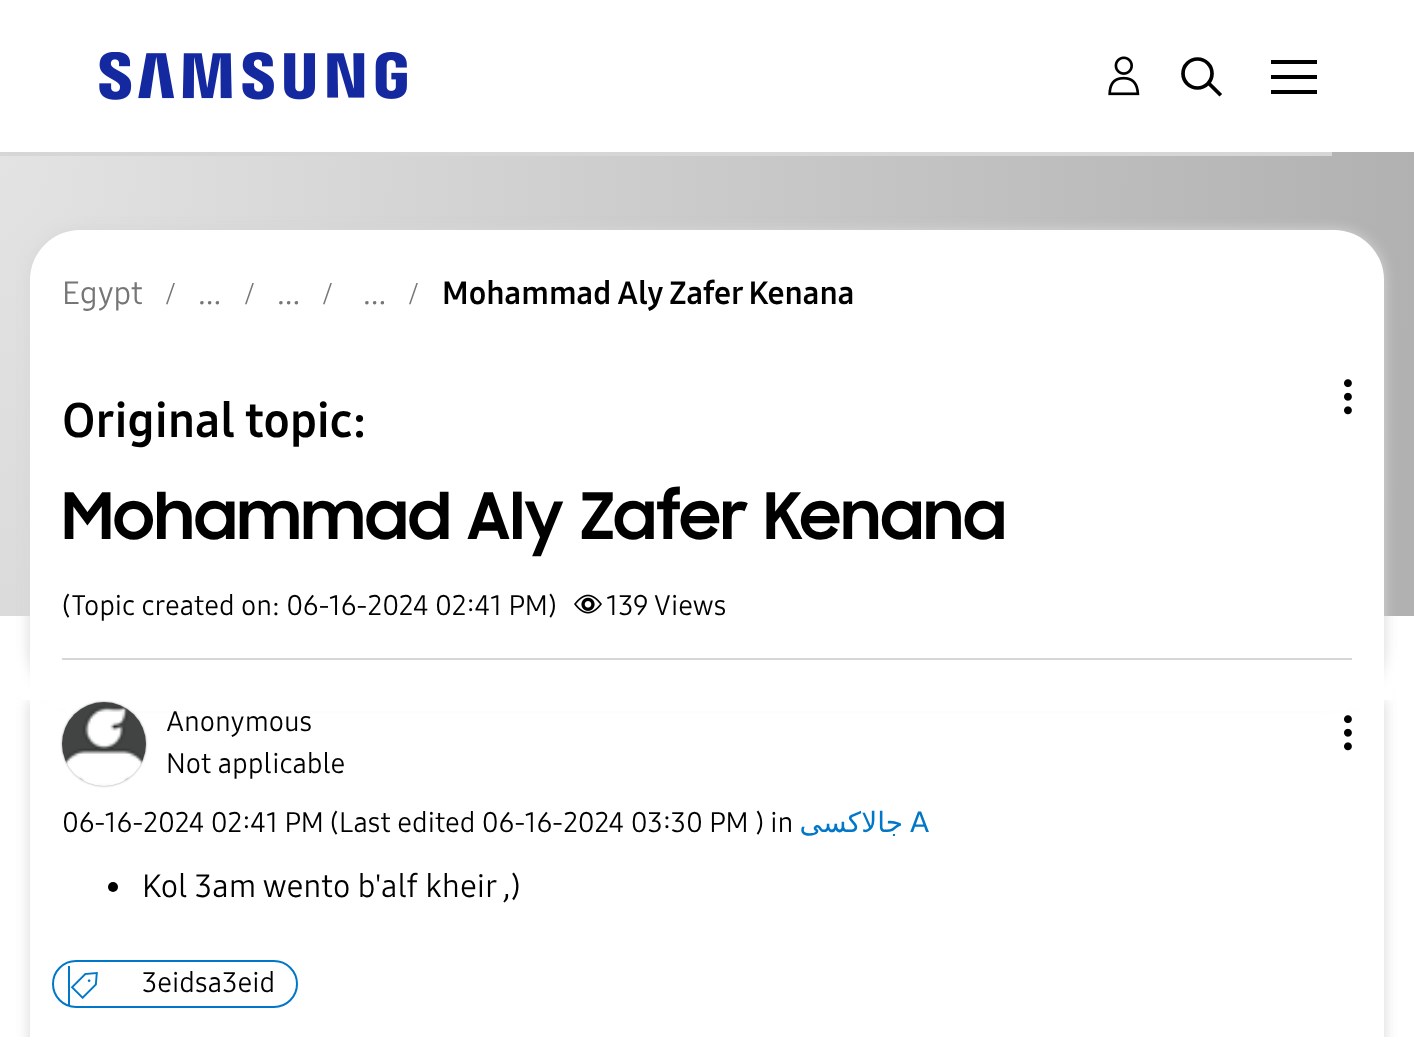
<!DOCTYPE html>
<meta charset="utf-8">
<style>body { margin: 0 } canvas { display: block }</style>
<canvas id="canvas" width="1414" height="1037"></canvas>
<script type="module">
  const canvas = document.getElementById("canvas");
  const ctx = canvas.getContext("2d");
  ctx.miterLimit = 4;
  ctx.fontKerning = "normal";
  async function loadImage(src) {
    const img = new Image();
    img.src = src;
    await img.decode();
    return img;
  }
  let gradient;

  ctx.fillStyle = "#ffffff";
  ctx.fillRect(0, 0, 1414, 1037);
  ctx.save();
  ctx.beginPath();
  ctx.moveTo(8, 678);
  ctx.lineTo(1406, 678);
  ctx.lineTo(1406, 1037);
  ctx.lineTo(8, 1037);
  ctx.closePath();
  ctx.moveTo(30, 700);
  ctx.lineTo(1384, 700);
  ctx.lineTo(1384, 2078);
  ctx.lineTo(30, 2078);
  ctx.closePath();
  ctx.clip("evenodd");
  ctx.fillStyle = "#d6d6d6";
  ctx.filter = "blur(7px)";
  ctx.beginPath();
  ctx.rect(30, 700, 1354, 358);
  ctx.fill();
  ctx.filter = "none";
  ctx.restore();
  ctx.fillRect(22, 689, 1370, 11);
  ctx.drawImage(await loadImage("img1.png"), 99, 52, 308, 48);
  ctx.drawImage(await loadImage("img2.png"), 1108, 56, 32, 40);
  ctx.beginPath();
  ctx.arc(1197.5, 73.5, 14.5, 0, Math.PI * 2);
  ctx.strokeStyle = "#000000";
  ctx.lineWidth = 3.7;
  ctx.stroke();
  ctx.beginPath();
  ctx.moveTo(1210, 84.5);
  ctx.lineTo(1219.5, 94);
  ctx.lineCap = "square";
  ctx.stroke();
  ctx.fillStyle = "#000000";
  ctx.beginPath();
  ctx.moveTo(1317, 90);
  ctx.lineTo(1317, 94);
  ctx.lineTo(1271, 94);
  ctx.lineTo(1271, 90);
  ctx.closePath();
  ctx.moveTo(1317, 75);
  ctx.lineTo(1317, 79);
  ctx.lineTo(1271, 79);
  ctx.lineTo(1271, 75);
  ctx.closePath();
  ctx.moveTo(1317, 60);
  ctx.lineTo(1317, 64);
  ctx.lineTo(1271, 64);
  ctx.lineTo(1271, 60);
  ctx.closePath();
  ctx.fill();
  gradient = ctx.createRadialGradient(0, 66.77, 0, 0, 66.77, 1414);
  gradient.addColorStop(0, "#e3e3e3");
  gradient.addColorStop(1, "#b1b1b1");
  ctx.fillStyle = gradient;
  ctx.beginPath();
  ctx.rect(0, 152, 1414, 464);
  ctx.save();
  ctx.clip();
  ctx.scale(1, 2880 / 1414);
  ctx.fillRect(0, 0, 1414, 510);
  ctx.restore();
  ctx.fillStyle = "#d6d6d6";
  ctx.fillRect(0, 152, 1332, 4);
  ctx.filter = "blur(7px)";
  ctx.beginPath();
  ctx.roundRect(30, 230, 1354, 470, 50);
  ctx.fill();
  ctx.filter = "none";
  ctx.fillStyle = "#ffffff";
  ctx.beginPath();
  ctx.roundRect(30, 230, 1354, 470, [50, 50, 0, 0]);
  ctx.fill();
  ctx.fillStyle = "#d6d6d6";
  ctx.fillRect(62, 658, 1290, 2);
  ctx.font = "32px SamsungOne";
  ctx.fillStyle = "#767676";
  ctx.fillText("Egypt", 62, 304);
  ctx.font = "32px Liberation Serif";
  ctx.fillText("/", 166, 304);
  ctx.font = "32px SamsungOne";
  ctx.fillText("...", 198, 304);
  ctx.font = "32px Liberation Serif";
  ctx.fillText("/", 245, 304);
  ctx.font = "32px SamsungOne";
  ctx.fillText("...", 277, 304);
  ctx.font = "32px Liberation Serif";
  ctx.fillText("/", 323, 304);
  ctx.font = "32px SamsungOne";
  ctx.fillText("...", 363, 304);
  ctx.font = "32px Liberation Serif";
  ctx.fillText("/", 409, 304);
  ctx.font = "bold 32px SamsungOne";
  ctx.fillStyle = "#000000";
  ctx.fillText("Mohammad Aly Zafer Kenana", 442, 304);
  ctx.font = "bold 48px SamsungOne";
  ctx.fillText("Original topic:", 62, 437);
  ctx.drawImage(await loadImage("img3.png"), 1344, 379, 8, 36);
  ctx.font = "bold 64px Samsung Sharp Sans";
  ctx.fillText("Mohammad Aly Zafer Kenana", 62, 539);
  ctx.font = "28px SamsungOne";
  ctx.fillText("(Topic created on: 06-16-2024 02:41 PM)", 62, 615);
  ctx.drawImage(await loadImage("img4.png"), 574, 594, 28, 20);
  ctx.fillText("139 Views", 606, 615);
  ctx.fillStyle = "#ffffff";
  ctx.fillRect(47, 700, 1320, 8);
  ctx.fillRect(66, 708, 1282, 3);
  ctx.fillStyle = "#999999";
  ctx.filter = "blur(1px)";
  ctx.beginPath();
  ctx.roundRect(62, 702, 84, 84, 42);
  ctx.fill();
  ctx.filter = "none";
  ctx.drawImage(await loadImage("img5.png"), 62, 702, 84, 84);
  ctx.fillStyle = "#000000";
  ctx.fillText("Anonymous", 166, 731);
  ctx.fillText("Not applicable", 166, 773);
  ctx.drawImage(await loadImage("img3.png"), 1344, 715, 8, 36);
  ctx.fillText("06-16-2024 02:41 PM (Last edited 06-16-2024 03:30 PM ) in", 62, 832);
  ctx.direction = "rtl";
  ctx.font = "28px DejaVu Sans";
  ctx.fillStyle = "#0077c8";
  ctx.fillText("جالاكسى", 903, 832);
  ctx.direction = "ltr";
  ctx.fillText("A", 910, 832);
  ctx.fillStyle = "#000000";
  ctx.beginPath();
  ctx.arc(113, 887, 5, 0, Math.PI * 2);
  ctx.fill();
  ctx.font = "32px SamsungOne";
  ctx.fillText("Kol 3am wento b'alf kheir ,)", 142, 897);
  ctx.beginPath();
  ctx.roundRect(53, 961, 244, 46, 23);
  ctx.strokeStyle = "#0077c8";
  ctx.lineWidth = 2;
  ctx.stroke();
  ctx.drawImage(await loadImage("img6.png"), 70, 972, 28, 27);
  ctx.font = "28px SamsungOne";
  ctx.fillText("3eidsa3eid", 142, 992);
  ctx.fillStyle = "#0077c8";
  ctx.fillRect(68, 966, 2, 40);
</script>
